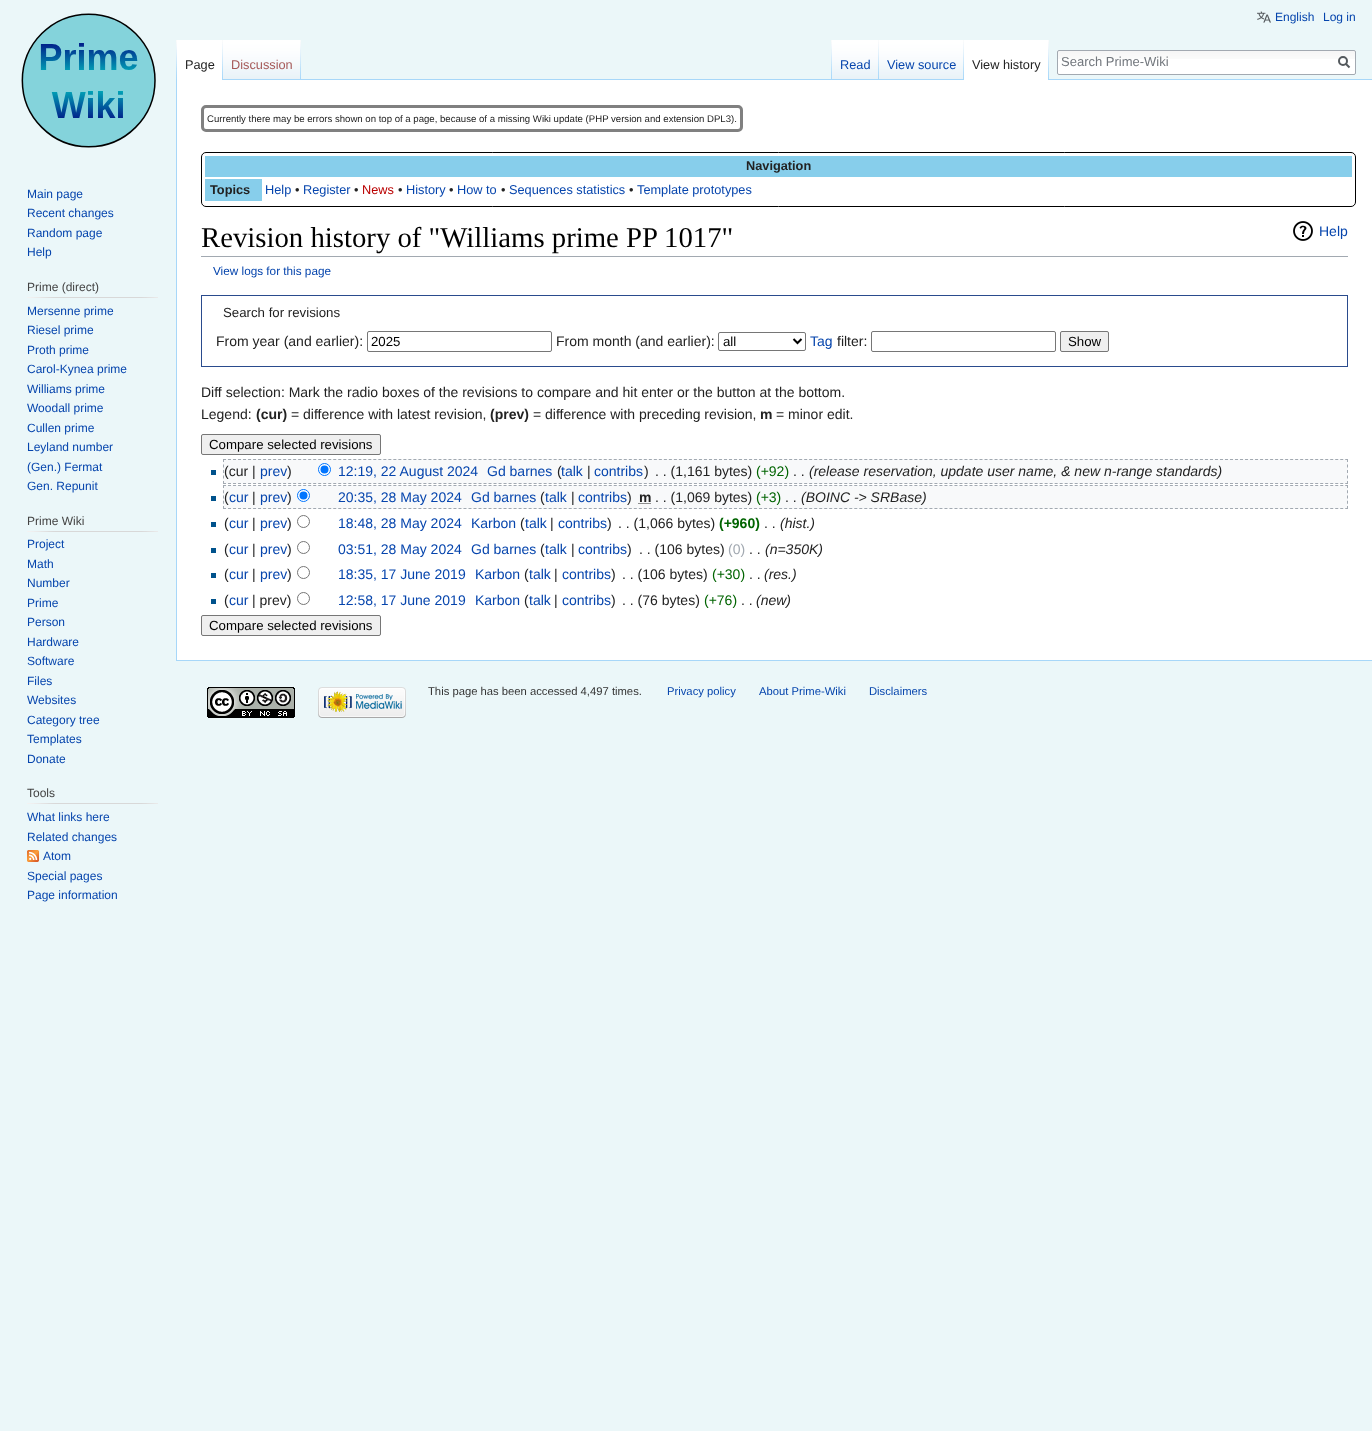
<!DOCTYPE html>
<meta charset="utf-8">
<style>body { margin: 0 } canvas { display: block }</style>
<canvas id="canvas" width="1372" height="1431"></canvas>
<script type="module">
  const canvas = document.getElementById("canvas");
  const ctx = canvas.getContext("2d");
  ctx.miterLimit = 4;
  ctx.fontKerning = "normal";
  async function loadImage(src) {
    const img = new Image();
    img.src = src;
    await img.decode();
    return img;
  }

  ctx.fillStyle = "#ebf7f9";
  ctx.fillRect(0, 0, 1372, 1431);
  ctx.drawImage(await loadImage("img1.png"), 1257, 11, 14, 12);
  ctx.font = "12px Liberation Sans";
  ctx.fillStyle = "#0645ad";
  ctx.fillText("English", 1275, 21);
  ctx.fillText("Log in", 1323, 21);
  ctx.drawImage(await loadImage("img2.png"), 176, 40, 1, 39);
  ctx.fillStyle = "#ffffff";
  ctx.fillRect(177, 40, 45, 40);
  ctx.drawImage(await loadImage("img3.png"), 222, 40, 1, 40);
  ctx.font = "12.75px Liberation Sans";
  ctx.fillStyle = "#222222";
  ctx.fillText("Page", 185, 69);
  ctx.drawImage(await loadImage("img4.png"), 223, 40, 77, 39);
  ctx.drawImage(await loadImage("img2.png"), 300, 40, 1, 39);
  ctx.fillStyle = "#a55858";
  ctx.fillText("Discussion", 231, 69);
  ctx.drawImage(await loadImage("img2.png"), 831, 40, 1, 39);
  ctx.drawImage(await loadImage("img5.png"), 832, 40, 46, 39);
  ctx.drawImage(await loadImage("img2.png"), 878, 40, 1, 39);
  ctx.fillStyle = "#0645ad";
  ctx.fillText("Read", 840, 69);
  ctx.drawImage(await loadImage("img6.png"), 879, 40, 84, 39);
  ctx.drawImage(await loadImage("img2.png"), 963, 40, 1, 39);
  ctx.fillText("View source", 887, 69);
  ctx.fillStyle = "#a7d7f9";
  ctx.fillRect(223, 79, 1149, 1);
  ctx.fillStyle = "#ffffff";
  ctx.fillRect(964, 40, 84, 40);
  ctx.drawImage(await loadImage("img3.png"), 1048, 40, 1, 40);
  ctx.fillStyle = "#222222";
  ctx.fillText("View history", 972, 69);
  ctx.fillStyle = "#ffffff";
  ctx.beginPath();
  ctx.roundRect(1057, 50, 299, 25, 2);
  ctx.fill();
  ctx.drawImage(await loadImage("img7.png"), 1057, 51, 299, 8);
  ctx.beginPath();
  ctx.roundRect(1057.5, 50.5, 298, 24, 1.5);
  ctx.strokeStyle = "#a2a9b1";
  ctx.stroke();
  ctx.font = "13px Liberation Sans";
  ctx.fillStyle = "#72777d";
  ctx.fillText("Search Prime-Wiki", 1061, 66);
  ctx.beginPath();
  ctx.moveTo(1349.5, 67.5);
  ctx.lineTo(1345.5, 63.5);
  ctx.strokeStyle = "#54595d";
  ctx.lineWidth = 2;
  ctx.stroke();
  ctx.beginPath();
  ctx.arc(1343, 61, 4, 0, Math.PI * 2);
  ctx.stroke();
  ctx.drawImage(await loadImage("img8.png"), 21, 13, 135, 135);
  ctx.font = "12px Liberation Sans";
  ctx.fillStyle = "#0645ad";
  ctx.fillText("Main page", 27, 198);
  ctx.fillText("Recent changes", 27, 217);
  ctx.fillText("Random page", 27, 237);
  ctx.fillText("Help", 27, 256);
  ctx.fillStyle = "#444444";
  ctx.fillText("Prime (direct)", 27, 291);
  ctx.drawImage(await loadImage("img9.png"), 27, 297, 131, 1);
  ctx.fillStyle = "#0645ad";
  ctx.fillText("Mersenne prime", 27, 315);
  ctx.fillText("Riesel prime", 27, 334);
  ctx.fillText("Proth prime", 27, 354);
  ctx.fillText("Carol-Kynea prime", 27, 373);
  ctx.fillText("Williams prime", 27, 393);
  ctx.fillText("Woodall prime", 27, 412);
  ctx.fillText("Cullen prime", 27, 432);
  ctx.fillText("Leyland number", 27, 451);
  ctx.fillText("(Gen.) Fermat", 27, 471);
  ctx.fillText("Gen. Repunit", 27, 490);
  ctx.fillStyle = "#444444";
  ctx.fillText("Prime Wiki", 27, 525);
  ctx.drawImage(await loadImage("img9.png"), 27, 531, 131, 1);
  ctx.fillStyle = "#0645ad";
  ctx.fillText("Project", 27, 548);
  ctx.fillText("Math", 27, 568);
  ctx.fillText("Number", 27, 587);
  ctx.fillText("Prime", 27, 607);
  ctx.fillText("Person", 27, 626);
  ctx.fillText("Hardware", 27, 646);
  ctx.fillText("Software", 27, 665);
  ctx.fillText("Files", 27, 685);
  ctx.fillText("Websites", 27, 704);
  ctx.fillText("Category tree", 27, 724);
  ctx.fillText("Templates", 27, 743);
  ctx.fillText("Donate", 27, 763);
  ctx.fillStyle = "#444444";
  ctx.fillText("Tools", 27, 797);
  ctx.drawImage(await loadImage("img9.png"), 27, 803, 131, 1);
  ctx.fillStyle = "#0645ad";
  ctx.fillText("What links here", 27, 821);
  ctx.fillText("Related changes", 27, 841);
  ctx.drawImage(await loadImage("img10.png"), 27, 850, 12, 12);
  ctx.fillText("Atom", 43, 860);
  ctx.fillText("Special pages", 27, 880);
  ctx.fillText("Page information", 27, 899);
  ctx.fillStyle = "#ffffff";
  ctx.fillRect(177, 80, 1195, 580);
  ctx.fillStyle = "#a7d7f9";
  ctx.fillRect(176, 660, 1196, 1);
  ctx.fillRect(176, 79, 1, 582);
  ctx.beginPath();
  ctx.roundRect(202.5, 106.5, 539, 24, 3.5);
  ctx.strokeStyle = "#808080";
  ctx.lineWidth = 3;
  ctx.stroke();
  ctx.font = "9.6px Liberation Sans";
  ctx.fillStyle = "#222222";
  ctx.fillText("Currently there may be errors shown on top of a page, because of a missing Wiki update (PHP version and extension DPL3).", 207, 122);
  ctx.beginPath();
  ctx.roundRect(201.5, 152.5, 1154, 54, 4.5);
  ctx.strokeStyle = "#000000";
  ctx.lineWidth = 1;
  ctx.stroke();
  ctx.fillStyle = "#87ceeb";
  ctx.fillRect(205, 156, 1147, 21);
  ctx.font = "bold 12.75px Liberation Sans";
  ctx.fillStyle = "#222222";
  ctx.fillText("Navigation", 746, 170);
  ctx.fillStyle = "#87ceeb";
  ctx.fillRect(205, 179, 57, 22);
  ctx.fillStyle = "#222222";
  ctx.fillText("Topics", 210, 194);
  ctx.font = "12.75px Liberation Sans";
  ctx.fillStyle = "#0645ad";
  ctx.fillText("Help", 265, 194);
  ctx.fillStyle = "#222222";
  ctx.fillText("•", 295, 194);
  ctx.fillStyle = "#0645ad";
  ctx.fillText("Register", 303, 194);
  ctx.fillStyle = "#222222";
  ctx.fillText("•", 354, 194);
  ctx.fillStyle = "#ba0000";
  ctx.fillText("News", 362, 194);
  ctx.fillStyle = "#222222";
  ctx.fillText("•", 398, 194);
  ctx.fillStyle = "#0645ad";
  ctx.fillText("History", 406, 194);
  ctx.fillStyle = "#222222";
  ctx.fillText("•", 449, 194);
  ctx.fillStyle = "#0645ad";
  ctx.fillText("How to", 457, 194);
  ctx.fillStyle = "#222222";
  ctx.fillText("•", 501, 194);
  ctx.fillStyle = "#0645ad";
  ctx.fillText("Sequences statistics", 509, 194);
  ctx.fillStyle = "#222222";
  ctx.fillText("•", 629, 194);
  ctx.fillStyle = "#0645ad";
  ctx.fillText("Template prototypes", 637, 194);
  ctx.fillStyle = "#a2a9b1";
  ctx.fillRect(201, 256, 1147, 1);
  ctx.font = "28.75px Liberation Serif";
  ctx.fillStyle = "#000000";
  ctx.fillText("Revision history of \"Williams prime PP 1017\"", 201, 247);
  ctx.drawImage(await loadImage("img11.png"), 1293, 221, 20, 20);
  ctx.font = "14px Liberation Sans";
  ctx.fillStyle = "#0645ad";
  ctx.fillText("Help", 1319, 236);
  ctx.font = "11.75px Liberation Sans";
  ctx.fillText("View logs for this page", 213, 275);
  ctx.strokeStyle = "#2a4b8d";
  ctx.strokeRect(201.5, 295.5, 1146, 71);
  ctx.font = "13.25px Liberation Sans";
  ctx.fillStyle = "#222222";
  ctx.fillText("Search for revisions", 223, 317);
  ctx.font = "14px Liberation Sans";
  ctx.fillText("From year (and earlier):", 216, 346);
  ctx.beginPath();
  ctx.roundRect(367.5, 331.5, 184, 20, 1.5);
  ctx.strokeStyle = "#767676";
  ctx.stroke();
  ctx.font = "13.25px Liberation Sans";
  ctx.fillStyle = "#000000";
  ctx.fillText("2025", 371, 346);
  ctx.font = "14px Liberation Sans";
  ctx.fillStyle = "#222222";
  ctx.fillText("From month (and earlier):", 556, 346);
  ctx.beginPath();
  ctx.roundRect(718.5, 332.5, 87, 18, 1.5);
  ctx.stroke();
  ctx.beginPath();
  ctx.moveTo(793.5, 339);
  ctx.lineTo(797.5, 343);
  ctx.lineTo(801.5, 339);
  ctx.strokeStyle = "#000000";
  ctx.lineWidth = 2;
  ctx.stroke();
  ctx.font = "13.25px Liberation Sans";
  ctx.fillStyle = "#000000";
  ctx.fillText("all", 723, 346);
  ctx.font = "14px Liberation Sans";
  ctx.fillStyle = "#0645ad";
  ctx.fillText("Tag", 810, 346);
  ctx.fillStyle = "#222222";
  ctx.fillText("filter:", 837, 346);
  ctx.beginPath();
  ctx.roundRect(871.5, 331.5, 184, 20, 1.5);
  ctx.strokeStyle = "#767676";
  ctx.lineWidth = 1;
  ctx.stroke();
  ctx.fillStyle = "#efefef";
  ctx.beginPath();
  ctx.roundRect(1060.5, 331.5, 48, 20, 1.5);
  ctx.fill();
  ctx.stroke();
  ctx.font = "13.25px Liberation Sans";
  ctx.fillStyle = "#000000";
  ctx.fillText("Show", 1068, 346);
  ctx.font = "14px Liberation Sans";
  ctx.fillStyle = "#222222";
  ctx.fillText("Diff selection: Mark the radio boxes of the revisions to compare and hit enter or the button at the bottom.", 201, 397);
  ctx.fillText("Legend:", 201, 419);
  ctx.font = "bold 14px Liberation Sans";
  ctx.fillText("(cur)", 256, 419);
  ctx.font = "14px Liberation Sans";
  ctx.fillText("= difference with latest revision,", 291, 419);
  ctx.font = "bold 14px Liberation Sans";
  ctx.fillText("(prev)", 490, 419);
  ctx.font = "14px Liberation Sans";
  ctx.fillText("= difference with preceding revision,", 533, 419);
  ctx.font = "bold 14px Liberation Sans";
  ctx.fillText("m", 760, 419);
  ctx.font = "14px Liberation Sans";
  ctx.fillText("= minor edit.", 776, 419);
  ctx.fillStyle = "#efefef";
  ctx.beginPath();
  ctx.roundRect(201.5, 434.5, 179, 20, 1.5);
  ctx.fill();
  ctx.stroke();
  ctx.font = "13.25px Liberation Sans";
  ctx.fillStyle = "#000000";
  ctx.fillText("Compare selected revisions", 209, 449);
  ctx.fillStyle = "#f8f9fa";
  ctx.fillRect(223, 459, 1125, 25);
  ctx.beginPath();
  ctx.moveTo(223, 459.5);
  ctx.lineTo(1348, 459.5);
  ctx.strokeStyle = "#a2a9b1";
  ctx.setLineDash([3, 2.01]);
  ctx.stroke();
  ctx.beginPath();
  ctx.moveTo(1347.5, 459);
  ctx.lineTo(1347.5, 484);
  ctx.setLineDash([3, 2.5]);
  ctx.stroke();
  ctx.beginPath();
  ctx.moveTo(223, 483.5);
  ctx.lineTo(1348, 483.5);
  ctx.setLineDash([3, 2.01]);
  ctx.stroke();
  ctx.beginPath();
  ctx.moveTo(223.5, 459);
  ctx.lineTo(223.5, 484);
  ctx.setLineDash([3, 2.5]);
  ctx.stroke();
  ctx.fillStyle = "#00528c";
  ctx.fillRect(211, 470, 5, 5);
  ctx.font = "14px Liberation Sans";
  ctx.fillStyle = "#222222";
  ctx.fillText("(cur |", 224, 476);
  ctx.fillStyle = "#0645ad";
  ctx.fillText("prev", 260, 476);
  ctx.fillStyle = "#222222";
  ctx.fillText(")", 287, 476);
  ctx.fillStyle = "#ffffff";
  ctx.beginPath();
  ctx.arc(324.5, 469.5, 6, 0, Math.PI * 2);
  ctx.fill();
  ctx.strokeStyle = "#0075ff";
  ctx.setLineDash([]);
  ctx.stroke();
  ctx.fillStyle = "#0075ff";
  ctx.beginPath();
  ctx.arc(324.5, 469.5, 4, 0, Math.PI * 2);
  ctx.fill();
  ctx.fillStyle = "#0645ad";
  ctx.fillText("12:19, 22 August 2024", 338, 476);
  ctx.fillText("Gd barnes", 487, 476);
  ctx.fillStyle = "#222222";
  ctx.fillText("(", 557, 476);
  ctx.fillStyle = "#0645ad";
  ctx.fillText("talk", 561, 476);
  ctx.fillStyle = "#222222";
  ctx.fillText("|", 587, 476);
  ctx.fillStyle = "#0645ad";
  ctx.fillText("contribs", 594, 476);
  ctx.fillStyle = "#222222";
  ctx.fillText(")", 644, 476);
  ctx.fillText(". . (1,161 bytes)", 655, 476);
  ctx.fillStyle = "#006400";
  ctx.fillText("(+92)", 756, 476);
  ctx.fillStyle = "#222222";
  ctx.fillText(". .", 793, 476);
  ctx.font = "italic 14px Liberation Sans";
  ctx.fillText("(release reservation, update user name, & new n-range standards)", 809, 476);
  ctx.fillStyle = "#f8f9fa";
  ctx.fillRect(223, 485, 1125, 24);
  ctx.beginPath();
  ctx.moveTo(223, 485.5);
  ctx.lineTo(1348, 485.5);
  ctx.strokeStyle = "#a2a9b1";
  ctx.setLineDash([3, 2.01]);
  ctx.stroke();
  ctx.beginPath();
  ctx.moveTo(1347.5, 485);
  ctx.lineTo(1347.5, 509);
  ctx.setLineDash([3, 2.25]);
  ctx.stroke();
  ctx.beginPath();
  ctx.moveTo(223, 508.5);
  ctx.lineTo(1348, 508.5);
  ctx.setLineDash([3, 2.01]);
  ctx.stroke();
  ctx.beginPath();
  ctx.moveTo(223.5, 485);
  ctx.lineTo(223.5, 509);
  ctx.setLineDash([3, 2.25]);
  ctx.stroke();
  ctx.fillStyle = "#00528c";
  ctx.fillRect(211, 496, 5, 5);
  ctx.font = "14px Liberation Sans";
  ctx.fillStyle = "#222222";
  ctx.fillText("(", 224, 502);
  ctx.fillStyle = "#0645ad";
  ctx.fillText("cur", 229, 502);
  ctx.fillStyle = "#222222";
  ctx.fillText("|", 252, 502);
  ctx.fillStyle = "#0645ad";
  ctx.fillText("prev", 260, 502);
  ctx.fillStyle = "#222222";
  ctx.fillText(")", 287, 502);
  ctx.fillStyle = "#ffffff";
  ctx.beginPath();
  ctx.arc(303.5, 495.5, 6, 0, Math.PI * 2);
  ctx.fill();
  ctx.strokeStyle = "#0075ff";
  ctx.setLineDash([]);
  ctx.stroke();
  ctx.fillStyle = "#0075ff";
  ctx.beginPath();
  ctx.arc(303.5, 495.5, 4, 0, Math.PI * 2);
  ctx.fill();
  ctx.fillStyle = "#0645ad";
  ctx.fillText("20:35, 28 May 2024", 338, 502);
  ctx.fillText("Gd barnes", 471, 502);
  ctx.fillStyle = "#222222";
  ctx.fillText("(", 540, 502);
  ctx.fillStyle = "#0645ad";
  ctx.fillText("talk", 545, 502);
  ctx.fillStyle = "#222222";
  ctx.fillText("|", 571, 502);
  ctx.fillStyle = "#0645ad";
  ctx.fillText("contribs", 578, 502);
  ctx.fillStyle = "#222222";
  ctx.fillText(")", 627, 502);
  ctx.font = "bold 14px Liberation Sans";
  ctx.fillText("m", 639, 502);
  ctx.beginPath();
  ctx.moveTo(638.5, 503.5);
  ctx.lineTo(651, 503.5);
  ctx.strokeStyle = "#222222";
  ctx.setLineDash([1, 1]);
  ctx.stroke();
  ctx.font = "14px Liberation Sans";
  ctx.fillText(". . (1,069 bytes)", 655, 502);
  ctx.fillStyle = "#006400";
  ctx.fillText("(+3)", 756, 502);
  ctx.fillStyle = "#222222";
  ctx.fillText(". .", 785, 502);
  ctx.font = "italic 14px Liberation Sans";
  ctx.fillText("(BOINC -> SRBase)", 801, 502);
  ctx.fillStyle = "#00528c";
  ctx.fillRect(211, 522, 5, 5);
  ctx.font = "14px Liberation Sans";
  ctx.fillStyle = "#222222";
  ctx.fillText("(", 224, 528);
  ctx.fillStyle = "#0645ad";
  ctx.fillText("cur", 229, 528);
  ctx.fillStyle = "#222222";
  ctx.fillText("|", 252, 528);
  ctx.fillStyle = "#0645ad";
  ctx.fillText("prev", 260, 528);
  ctx.fillStyle = "#222222";
  ctx.fillText(")", 287, 528);
  ctx.beginPath();
  ctx.arc(303.5, 521.5, 6, 0, Math.PI * 2);
  ctx.strokeStyle = "#767676";
  ctx.setLineDash([]);
  ctx.stroke();
  ctx.fillStyle = "#0645ad";
  ctx.fillText("18:48, 28 May 2024", 338, 528);
  ctx.fillText("Karbon", 471, 528);
  ctx.fillStyle = "#222222";
  ctx.fillText("(", 520, 528);
  ctx.fillStyle = "#0645ad";
  ctx.fillText("talk", 525, 528);
  ctx.fillStyle = "#222222";
  ctx.fillText("|", 550, 528);
  ctx.fillStyle = "#0645ad";
  ctx.fillText("contribs", 558, 528);
  ctx.fillStyle = "#222222";
  ctx.fillText(")", 607, 528);
  ctx.fillText(". . (1,066 bytes)", 618, 528);
  ctx.font = "bold 14px Liberation Sans";
  ctx.fillStyle = "#006400";
  ctx.fillText("(+960)", 719, 528);
  ctx.font = "14px Liberation Sans";
  ctx.fillStyle = "#222222";
  ctx.fillText(". .", 764, 528);
  ctx.font = "italic 14px Liberation Sans";
  ctx.fillText("(hist.)", 780, 528);
  ctx.fillStyle = "#00528c";
  ctx.fillRect(211, 548, 5, 5);
  ctx.font = "14px Liberation Sans";
  ctx.fillStyle = "#222222";
  ctx.fillText("(", 224, 554);
  ctx.fillStyle = "#0645ad";
  ctx.fillText("cur", 229, 554);
  ctx.fillStyle = "#222222";
  ctx.fillText("|", 252, 554);
  ctx.fillStyle = "#0645ad";
  ctx.fillText("prev", 260, 554);
  ctx.fillStyle = "#222222";
  ctx.fillText(")", 287, 554);
  ctx.beginPath();
  ctx.arc(303.5, 547.5, 6, 0, Math.PI * 2);
  ctx.stroke();
  ctx.fillStyle = "#0645ad";
  ctx.fillText("03:51, 28 May 2024", 338, 554);
  ctx.fillText("Gd barnes", 471, 554);
  ctx.fillStyle = "#222222";
  ctx.fillText("(", 540, 554);
  ctx.fillStyle = "#0645ad";
  ctx.fillText("talk", 545, 554);
  ctx.fillStyle = "#222222";
  ctx.fillText("|", 571, 554);
  ctx.fillStyle = "#0645ad";
  ctx.fillText("contribs", 578, 554);
  ctx.fillStyle = "#222222";
  ctx.fillText(")", 627, 554);
  ctx.fillText(". . (106 bytes)", 639, 554);
  ctx.fillStyle = "#a2a9b1";
  ctx.fillText("(0)", 728, 554);
  ctx.fillStyle = "#222222";
  ctx.fillText(". .", 749, 554);
  ctx.font = "italic 14px Liberation Sans";
  ctx.fillText("(n=350K)", 765, 554);
  ctx.fillStyle = "#00528c";
  ctx.fillRect(211, 573, 5, 5);
  ctx.font = "14px Liberation Sans";
  ctx.fillStyle = "#222222";
  ctx.fillText("(", 224, 579);
  ctx.fillStyle = "#0645ad";
  ctx.fillText("cur", 229, 579);
  ctx.fillStyle = "#222222";
  ctx.fillText("|", 252, 579);
  ctx.fillStyle = "#0645ad";
  ctx.fillText("prev", 260, 579);
  ctx.fillStyle = "#222222";
  ctx.fillText(")", 287, 579);
  ctx.beginPath();
  ctx.arc(303.5, 572.5, 6, 0, Math.PI * 2);
  ctx.stroke();
  ctx.fillStyle = "#0645ad";
  ctx.fillText("18:35, 17 June 2019", 338, 579);
  ctx.fillText("Karbon", 475, 579);
  ctx.fillStyle = "#222222";
  ctx.fillText("(", 524, 579);
  ctx.fillStyle = "#0645ad";
  ctx.fillText("talk", 529, 579);
  ctx.fillStyle = "#222222";
  ctx.fillText("|", 554, 579);
  ctx.fillStyle = "#0645ad";
  ctx.fillText("contribs", 562, 579);
  ctx.fillStyle = "#222222";
  ctx.fillText(")", 611, 579);
  ctx.fillText(". . (106 bytes)", 622, 579);
  ctx.fillStyle = "#006400";
  ctx.fillText("(+30)", 712, 579);
  ctx.fillStyle = "#222222";
  ctx.fillText(". .", 749, 579);
  ctx.font = "italic 14px Liberation Sans";
  ctx.fillText("(res.)", 764, 579);
  ctx.fillStyle = "#00528c";
  ctx.fillRect(211, 599, 5, 5);
  ctx.font = "14px Liberation Sans";
  ctx.fillStyle = "#222222";
  ctx.fillText("(", 224, 605);
  ctx.fillStyle = "#0645ad";
  ctx.fillText("cur", 229, 605);
  ctx.fillStyle = "#222222";
  ctx.fillText("| prev)", 252, 605);
  ctx.beginPath();
  ctx.arc(303.5, 598.5, 6, 0, Math.PI * 2);
  ctx.stroke();
  ctx.fillStyle = "#0645ad";
  ctx.fillText("12:58, 17 June 2019", 338, 605);
  ctx.fillText("Karbon", 475, 605);
  ctx.fillStyle = "#222222";
  ctx.fillText("(", 524, 605);
  ctx.fillStyle = "#0645ad";
  ctx.fillText("talk", 529, 605);
  ctx.fillStyle = "#222222";
  ctx.fillText("|", 554, 605);
  ctx.fillStyle = "#0645ad";
  ctx.fillText("contribs", 562, 605);
  ctx.fillStyle = "#222222";
  ctx.fillText(")", 611, 605);
  ctx.fillText(". . (76 bytes)", 622, 605);
  ctx.fillStyle = "#006400";
  ctx.fillText("(+76)", 704, 605);
  ctx.fillStyle = "#222222";
  ctx.fillText(". .", 741, 605);
  ctx.font = "italic 14px Liberation Sans";
  ctx.fillText("(new)", 756, 605);
  ctx.fillStyle = "#efefef";
  ctx.beginPath();
  ctx.roundRect(201.5, 615.5, 179, 20, 1.5);
  ctx.fill();
  ctx.stroke();
  ctx.font = "13.25px Liberation Sans";
  ctx.fillStyle = "#000000";
  ctx.fillText("Compare selected revisions", 209, 630);
  ctx.drawImage(await loadImage("img12.png"), 207, 687, 88, 31);
  ctx.drawImage(await loadImage("img13.png"), 318, 687, 88, 31);
  ctx.font = "11.25px Liberation Sans";
  ctx.fillStyle = "#333333";
  ctx.fillText("This page has been accessed 4,497 times.", 428, 695);
  ctx.fillStyle = "#0645ad";
  ctx.fillText("Privacy policy", 667, 695);
  ctx.fillText("About Prime-Wiki", 759, 695);
  ctx.fillText("Disclaimers", 869, 695);
</script>
